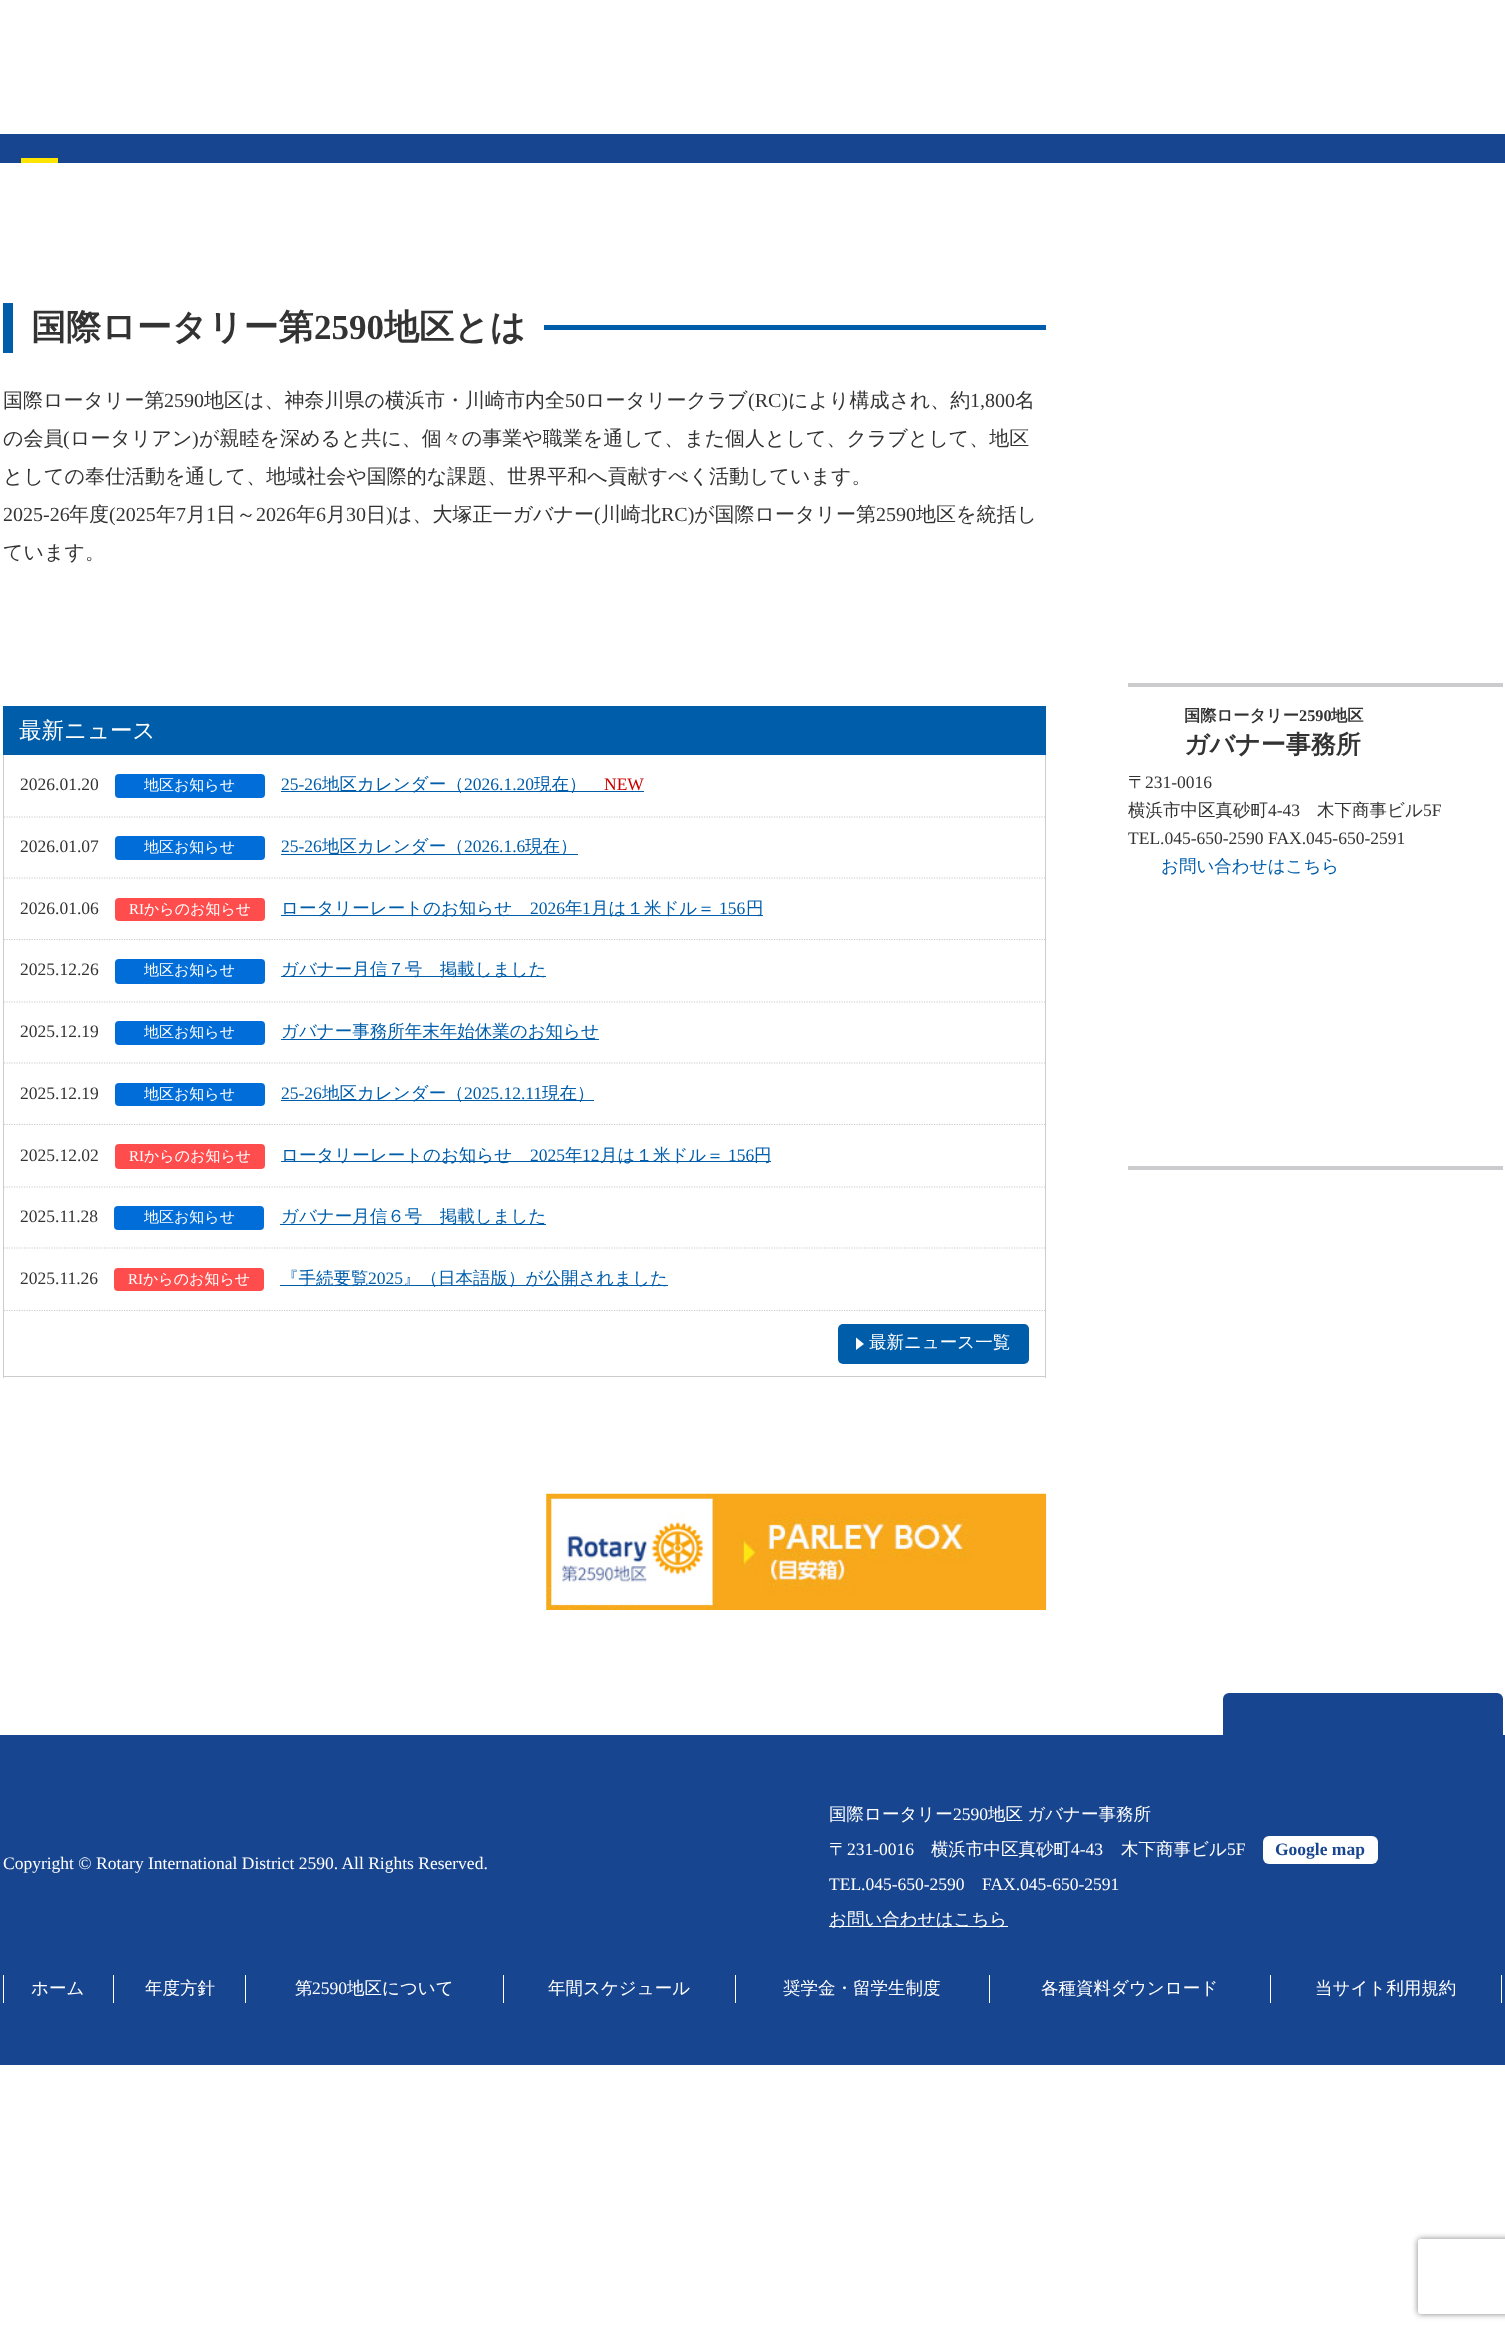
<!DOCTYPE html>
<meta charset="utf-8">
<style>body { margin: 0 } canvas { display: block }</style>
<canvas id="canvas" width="1505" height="2331"></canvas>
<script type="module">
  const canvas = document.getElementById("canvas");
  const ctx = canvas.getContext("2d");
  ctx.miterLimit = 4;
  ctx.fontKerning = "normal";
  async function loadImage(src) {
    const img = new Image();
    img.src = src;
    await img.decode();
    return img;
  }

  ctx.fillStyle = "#ffffff";
  ctx.fillRect(0, 0, 1505, 2331);
  ctx.fillStyle = "#17458f";
  ctx.fillRect(0, 134, 1505, 29);
  ctx.fillStyle = "#ffe400";
  ctx.fillRect(21, 158, 37, 5);
  ctx.fillStyle = "#005daa";
  ctx.fillRect(3, 303, 10, 50);
  ctx.font = "bold 35px WenQuanYi Zen Hei";
  ctx.fillStyle = "#333333";
  ctx.fillText("国際ロータリー第", 31, 339);
  ctx.font = "bold 35px Liberation Serif";
  ctx.fillText("2590", 314, 339);
  ctx.font = "bold 35px WenQuanYi Zen Hei";
  ctx.fillText("地区とは", 384, 339);
  ctx.fillStyle = "#005daa";
  ctx.fillRect(544, 325, 502, 5);
  ctx.font = "500 20px WenQuanYi Zen Hei";
  ctx.fillStyle = "#333333";
  ctx.fillText("国際ロータリー第", 3, 407);
  ctx.font = "20px Liberation Serif";
  ctx.fillText("2590", 164, 407);
  ctx.font = "500 20px WenQuanYi Zen Hei";
  ctx.fillText("地区は、神奈川県の横浜市・川崎市内全", 204, 407);
  ctx.font = "20px Liberation Serif";
  ctx.fillText("50", 565, 407);
  ctx.font = "500 20px WenQuanYi Zen Hei";
  ctx.fillText("ロータリークラブ", 585, 407);
  ctx.font = "20px Liberation Serif";
  ctx.fillText("(RC)", 748, 407);
  ctx.font = "500 20px WenQuanYi Zen Hei";
  ctx.fillText("により構成され、約", 788, 407);
  ctx.font = "20px Liberation Serif";
  ctx.fillText("1,800", 970, 407);
  ctx.font = "500 20px WenQuanYi Zen Hei";
  ctx.fillText("名", 1015, 407);
  ctx.fillText("の会員", 3, 445);
  ctx.font = "20px Liberation Serif";
  ctx.fillText("(", 63, 445);
  ctx.font = "500 20px WenQuanYi Zen Hei";
  ctx.fillText("ロータリアン", 70, 445);
  ctx.font = "20px Liberation Serif";
  ctx.fillText(")", 192, 445);
  ctx.font = "500 20px WenQuanYi Zen Hei";
  ctx.fillText("が親睦を深めると共に、個々の事業や職業を通して、また個人として、クラブとして、地区", 199, 445);
  ctx.fillText("としての奉仕活動を通して、地域社会や国際的な課題、世界平和へ貢献すべく活動しています。", 3, 483);
  ctx.font = "20px Liberation Serif";
  ctx.fillText("2025-26", 3, 521);
  ctx.font = "500 20px WenQuanYi Zen Hei";
  ctx.fillText("年度", 69, 521);
  ctx.font = "20px Liberation Serif";
  ctx.fillText("(2025", 109, 521);
  ctx.font = "500 20px WenQuanYi Zen Hei";
  ctx.fillText("年", 156, 521);
  ctx.font = "20px Liberation Serif";
  ctx.fillText("7", 176, 521);
  ctx.font = "500 20px WenQuanYi Zen Hei";
  ctx.fillText("月", 186, 521);
  ctx.font = "20px Liberation Serif";
  ctx.fillText("1", 206, 521);
  ctx.font = "500 20px WenQuanYi Zen Hei";
  ctx.fillText("日～", 216, 521);
  ctx.font = "20px Liberation Serif";
  ctx.fillText("2026", 256, 521);
  ctx.font = "500 20px WenQuanYi Zen Hei";
  ctx.fillText("年", 296, 521);
  ctx.font = "20px Liberation Serif";
  ctx.fillText("6", 316, 521);
  ctx.font = "500 20px WenQuanYi Zen Hei";
  ctx.fillText("月", 326, 521);
  ctx.font = "20px Liberation Serif";
  ctx.fillText("30", 346, 521);
  ctx.font = "500 20px WenQuanYi Zen Hei";
  ctx.fillText("日", 366, 521);
  ctx.font = "20px Liberation Serif";
  ctx.fillText(")", 386, 521);
  ctx.font = "500 20px WenQuanYi Zen Hei";
  ctx.fillText("は、大塚正一ガバナー", 392, 521);
  ctx.font = "20px Liberation Serif";
  ctx.fillText("(", 594, 521);
  ctx.font = "500 20px WenQuanYi Zen Hei";
  ctx.fillText("川崎北", 601, 521);
  ctx.font = "20px Liberation Serif";
  ctx.fillText("RC)", 661, 521);
  ctx.font = "500 20px WenQuanYi Zen Hei";
  ctx.fillText("が国際ロータリー第", 694, 521);
  ctx.font = "20px Liberation Serif";
  ctx.fillText("2590", 876, 521);
  ctx.font = "500 20px WenQuanYi Zen Hei";
  ctx.fillText("地区を統括し", 916, 521);
  ctx.fillText("ています。", 3, 559);
  ctx.fillStyle = "#005daa";
  ctx.fillRect(3, 706, 1043, 49);
  ctx.font = "500 22.5px WenQuanYi Zen Hei";
  ctx.fillStyle = "#ffffff";
  ctx.fillText("最新ニュース", 19, 738);
  ctx.fillStyle = "#cccccc";
  ctx.fillRect(1045, 755, 1, 623);
  ctx.fillRect(3, 1376, 1043, 1);
  ctx.fillRect(3, 755, 1, 623);
  ctx.font = "17.5px Liberation Serif";
  ctx.fillStyle = "#333333";
  ctx.fillText("2026.01.20", 20, 790);
  ctx.beginPath();
  ctx.moveTo(4, 817);
  ctx.lineTo(1045, 817);
  ctx.strokeStyle = "#cccccc";
  ctx.lineWidth = 1.2;
  ctx.setLineDash([1.25, 1.25]);
  ctx.stroke();
  ctx.fillStyle = "#006dd9";
  ctx.beginPath();
  ctx.roundRect(115, 774, 150, 24, 4);
  ctx.fill();
  ctx.font = "500 15px WenQuanYi Zen Hei";
  ctx.fillStyle = "#ffffff";
  ctx.fillText("地区お知らせ", 144, 790);
  ctx.font = "17.5px Liberation Serif";
  ctx.fillStyle = "#005daa";
  ctx.fillText("25-26", 281, 790);
  ctx.fillRect(281, 791, 363, 1);
  ctx.font = "500 17.5px WenQuanYi Zen Hei";
  ctx.fillText("地区カレンダー（", 322, 790);
  ctx.font = "17.5px Liberation Serif";
  ctx.fillText("2026.1.20", 464, 790);
  ctx.font = "500 17.5px WenQuanYi Zen Hei";
  ctx.fillText("現在）", 534, 790);
  ctx.font = "17.5px Liberation Serif";
  ctx.fillStyle = "#cc0000";
  ctx.fillText("NEW", 604, 790);
  ctx.fillStyle = "#333333";
  ctx.fillText("2026.01.07", 20, 852);
  ctx.beginPath();
  ctx.moveTo(4, 878);
  ctx.lineTo(1045, 878);
  ctx.stroke();
  ctx.fillStyle = "#006dd9";
  ctx.beginPath();
  ctx.roundRect(115, 836, 150, 24, 4);
  ctx.fill();
  ctx.font = "500 15px WenQuanYi Zen Hei";
  ctx.fillStyle = "#ffffff";
  ctx.fillText("地区お知らせ", 144, 852);
  ctx.font = "17.5px Liberation Serif";
  ctx.fillStyle = "#005daa";
  ctx.fillText("25-26", 281, 852);
  ctx.fillRect(281, 854, 297, 1);
  ctx.font = "500 17.5px WenQuanYi Zen Hei";
  ctx.fillText("地区カレンダー（", 322, 852);
  ctx.font = "17.5px Liberation Serif";
  ctx.fillText("2026.1.6", 464, 852);
  ctx.font = "500 17.5px WenQuanYi Zen Hei";
  ctx.fillText("現在）", 525, 852);
  ctx.font = "17.5px Liberation Serif";
  ctx.fillStyle = "#333333";
  ctx.fillText("2026.01.06", 20, 914);
  ctx.beginPath();
  ctx.moveTo(4, 939.5);
  ctx.lineTo(1045, 939.5);
  ctx.stroke();
  ctx.fillStyle = "#ff4d4d";
  ctx.beginPath();
  ctx.roundRect(115, 898, 150, 23, 4);
  ctx.fill();
  ctx.font = "15px Liberation Serif";
  ctx.fillStyle = "#ffffff";
  ctx.fillText("RI", 129, 914);
  ctx.font = "500 15px WenQuanYi Zen Hei";
  ctx.fillText("からのお知らせ", 144, 914);
  ctx.fillStyle = "#005daa";
  ctx.fillRect(281, 915, 482, 1);
  ctx.font = "500 17.5px WenQuanYi Zen Hei";
  ctx.fillText("ロータリーレートのお知らせ", 281, 914);
  ctx.font = "17.5px Liberation Serif";
  ctx.fillText("2026", 530, 914);
  ctx.font = "500 17.5px WenQuanYi Zen Hei";
  ctx.fillText("年", 565, 914);
  ctx.font = "17.5px Liberation Serif";
  ctx.fillText("1", 582, 914);
  ctx.font = "500 17.5px WenQuanYi Zen Hei";
  ctx.fillText("月は１米ドル＝", 591, 914);
  ctx.font = "17.5px Liberation Serif";
  ctx.fillText("156", 719, 914);
  ctx.font = "500 17.5px WenQuanYi Zen Hei";
  ctx.fillText("円", 746, 914);
  ctx.font = "17.5px Liberation Serif";
  ctx.fillStyle = "#333333";
  ctx.fillText("2025.12.26", 20, 975);
  ctx.beginPath();
  ctx.moveTo(4, 1002);
  ctx.lineTo(1045, 1002);
  ctx.stroke();
  ctx.fillStyle = "#006dd9";
  ctx.beginPath();
  ctx.roundRect(115, 959, 150, 25, 4);
  ctx.fill();
  ctx.font = "500 15px WenQuanYi Zen Hei";
  ctx.fillStyle = "#ffffff";
  ctx.fillText("地区お知らせ", 144, 975);
  ctx.fillStyle = "#005daa";
  ctx.fillRect(281, 976, 265, 1);
  ctx.font = "500 17.5px WenQuanYi Zen Hei";
  ctx.fillText("ガバナー月信７号　掲載しました", 281, 975);
  ctx.font = "17.5px Liberation Serif";
  ctx.fillStyle = "#333333";
  ctx.fillText("2025.12.19", 20, 1037);
  ctx.beginPath();
  ctx.moveTo(4, 1063);
  ctx.lineTo(1045, 1063);
  ctx.stroke();
  ctx.fillStyle = "#006dd9";
  ctx.beginPath();
  ctx.roundRect(115, 1021, 150, 24, 4);
  ctx.fill();
  ctx.font = "500 15px WenQuanYi Zen Hei";
  ctx.fillStyle = "#ffffff";
  ctx.fillText("地区お知らせ", 144, 1037);
  ctx.fillStyle = "#005daa";
  ctx.fillRect(281, 1039, 318, 1);
  ctx.font = "500 17.5px WenQuanYi Zen Hei";
  ctx.fillText("ガバナー事務所年末年始休業のお知らせ", 281, 1037);
  ctx.font = "17.5px Liberation Serif";
  ctx.fillStyle = "#333333";
  ctx.fillText("2025.12.19", 20, 1099);
  ctx.beginPath();
  ctx.moveTo(4, 1124.5);
  ctx.lineTo(1045, 1124.5);
  ctx.stroke();
  ctx.fillStyle = "#006dd9";
  ctx.beginPath();
  ctx.roundRect(115, 1083, 150, 23, 4);
  ctx.fill();
  ctx.font = "500 15px WenQuanYi Zen Hei";
  ctx.fillStyle = "#ffffff";
  ctx.fillText("地区お知らせ", 144, 1099);
  ctx.font = "17.5px Liberation Serif";
  ctx.fillStyle = "#005daa";
  ctx.fillText("25-26", 281, 1099);
  ctx.fillRect(281, 1100, 313, 1);
  ctx.font = "500 17.5px WenQuanYi Zen Hei";
  ctx.fillText("地区カレンダー（", 322, 1099);
  ctx.font = "17.5px Liberation Serif";
  ctx.fillText("2025.12.11", 464, 1099);
  ctx.font = "500 17.5px WenQuanYi Zen Hei";
  ctx.fillText("現在）", 542, 1099);
  ctx.font = "17.5px Liberation Serif";
  ctx.fillStyle = "#333333";
  ctx.fillText("2025.12.02", 20, 1161);
  ctx.beginPath();
  ctx.moveTo(4, 1187);
  ctx.lineTo(1045, 1187);
  ctx.stroke();
  ctx.fillStyle = "#ff4d4d";
  ctx.beginPath();
  ctx.roundRect(115, 1144, 150, 25, 4);
  ctx.fill();
  ctx.font = "15px Liberation Serif";
  ctx.fillStyle = "#ffffff";
  ctx.fillText("RI", 129, 1161);
  ctx.font = "500 15px WenQuanYi Zen Hei";
  ctx.fillText("からのお知らせ", 144, 1161);
  ctx.fillStyle = "#005daa";
  ctx.fillRect(281, 1161, 490, 1);
  ctx.font = "500 17.5px WenQuanYi Zen Hei";
  ctx.fillText("ロータリーレートのお知らせ", 281, 1161);
  ctx.font = "17.5px Liberation Serif";
  ctx.fillText("2025", 530, 1161);
  ctx.font = "500 17.5px WenQuanYi Zen Hei";
  ctx.fillText("年", 565, 1161);
  ctx.font = "17.5px Liberation Serif";
  ctx.fillText("12", 582, 1161);
  ctx.font = "500 17.5px WenQuanYi Zen Hei";
  ctx.fillText("月は１米ドル＝", 600, 1161);
  ctx.font = "17.5px Liberation Serif";
  ctx.fillText("156", 728, 1161);
  ctx.font = "500 17.5px WenQuanYi Zen Hei";
  ctx.fillText("円", 754, 1161);
  ctx.font = "17.5px Liberation Serif";
  ctx.fillStyle = "#333333";
  ctx.fillText("2025.11.28", 20, 1222);
  ctx.beginPath();
  ctx.moveTo(4, 1248);
  ctx.lineTo(1045, 1248);
  ctx.stroke();
  ctx.fillStyle = "#006dd9";
  ctx.beginPath();
  ctx.roundRect(114, 1206, 150, 24, 4);
  ctx.fill();
  ctx.font = "500 15px WenQuanYi Zen Hei";
  ctx.fillStyle = "#ffffff";
  ctx.fillText("地区お知らせ", 144, 1222);
  ctx.fillStyle = "#005daa";
  ctx.fillRect(280, 1224, 266, 1);
  ctx.font = "500 17.5px WenQuanYi Zen Hei";
  ctx.fillText("ガバナー月信６号　掲載しました", 281, 1222);
  ctx.font = "17.5px Liberation Serif";
  ctx.fillStyle = "#333333";
  ctx.fillText("2025.11.26", 20, 1284);
  ctx.beginPath();
  ctx.moveTo(4, 1310.5);
  ctx.lineTo(1045, 1310.5);
  ctx.stroke();
  ctx.fillStyle = "#ff4d4d";
  ctx.beginPath();
  ctx.roundRect(114, 1268, 150, 23, 4);
  ctx.fill();
  ctx.font = "15px Liberation Serif";
  ctx.fillStyle = "#ffffff";
  ctx.fillText("RI", 128, 1284);
  ctx.font = "500 15px WenQuanYi Zen Hei";
  ctx.fillText("からのお知らせ", 143, 1284);
  ctx.fillStyle = "#005daa";
  ctx.fillRect(280, 1285, 388, 1);
  ctx.font = "500 17.5px WenQuanYi Zen Hei";
  ctx.fillText("『手続要覧", 281, 1284);
  ctx.font = "17.5px Liberation Serif";
  ctx.fillText("2025", 368, 1284);
  ctx.font = "500 17.5px WenQuanYi Zen Hei";
  ctx.fillText("』（日本語版）が公開されました", 403, 1284);
  ctx.beginPath();
  ctx.roundRect(838, 1324, 191, 40, 5);
  ctx.fill();
  ctx.fillStyle = "#ffffff";
  ctx.beginPath();
  ctx.moveTo(856, 1350);
  ctx.lineTo(856, 1337.5);
  ctx.lineTo(864, 1344);
  ctx.closePath();
  ctx.fill();
  ctx.fillText("最新ニュース一覧", 869, 1348);
  ctx.drawImage(await loadImage("img1.png"), 546, 1493, 501, 117);
  ctx.fillStyle = "#cccccf";
  ctx.fillRect(1128, 683, 375, 4);
  ctx.fillRect(1128, 1166, 375, 4);
  ctx.font = "bold 16.25px WenQuanYi Zen Hei";
  ctx.fillStyle = "#333333";
  ctx.fillText("国際ロータリー", 1184, 721);
  ctx.font = "bold 16.25px Liberation Serif";
  ctx.fillText("2590", 1299, 721);
  ctx.font = "bold 16.25px WenQuanYi Zen Hei";
  ctx.fillText("地区", 1331, 721);
  ctx.font = "bold 25px WenQuanYi Zen Hei";
  ctx.fillText("ガバナー事務所", 1184, 753);
  ctx.font = "500 17.5px WenQuanYi Zen Hei";
  ctx.fillText("〒", 1128, 788);
  ctx.font = "17.5px Liberation Serif";
  ctx.fillText("231-0016", 1145, 788);
  ctx.font = "500 17.5px WenQuanYi Zen Hei";
  ctx.fillText("横浜市中区真砂町", 1128, 816);
  ctx.font = "17.5px Liberation Serif";
  ctx.fillText("4-43", 1268, 816);
  ctx.font = "500 17.5px WenQuanYi Zen Hei";
  ctx.fillText("木下商事ビル", 1317, 816);
  ctx.font = "17.5px Liberation Serif";
  ctx.fillText("5F", 1423, 816);
  ctx.fillText("TEL.045-650-2590 FAX.045-650-2591", 1128, 844);
  ctx.font = "500 17.5px WenQuanYi Zen Hei";
  ctx.fillStyle = "#005daa";
  ctx.fillText("お問い合わせはこちら", 1161, 872);
  ctx.fillStyle = "#17458f";
  ctx.fillRect(0, 1735, 1505, 330);
  ctx.beginPath();
  ctx.roundRect(1223, 1693, 280, 52, [6, 6, 0, 0]);
  ctx.fill();
  ctx.font = "17.5px Liberation Serif";
  ctx.fillStyle = "#ffffff";
  ctx.fillText("Copyright © Rotary International District 2590. All Rights Reserved.", 3, 1869);
  ctx.font = "500 17.5px WenQuanYi Zen Hei";
  ctx.fillText("国際ロータリー", 829, 1820);
  ctx.font = "17.5px Liberation Serif";
  ctx.fillText("2590", 953, 1820);
  ctx.wordSpacing = "-1px";
  ctx.font = "500 17.5px WenQuanYi Zen Hei";
  ctx.fillText("地区 ガバナー事務所", 988, 1820);
  ctx.wordSpacing = "0px";
  ctx.fillText("〒", 829, 1855);
  ctx.font = "17.5px Liberation Serif";
  ctx.fillText("231-0016", 847, 1855);
  ctx.font = "500 17.5px WenQuanYi Zen Hei";
  ctx.fillText("横浜市中区真砂町", 931, 1855);
  ctx.font = "17.5px Liberation Serif";
  ctx.fillText("4-43", 1071, 1855);
  ctx.font = "500 17.5px WenQuanYi Zen Hei";
  ctx.fillText("木下商事ビル", 1121, 1855);
  ctx.font = "17.5px Liberation Serif";
  ctx.fillText("5F", 1227, 1855);
  ctx.beginPath();
  ctx.roundRect(1263, 1836, 115, 28, 6);
  ctx.fill();
  ctx.font = "bold 17.5px Liberation Serif";
  ctx.fillStyle = "#17458f";
  ctx.fillText("Google map", 1275, 1855);
  ctx.font = "17.5px Liberation Serif";
  ctx.fillStyle = "#ffffff";
  ctx.fillText("TEL.045-650-2590", 829, 1890);
  ctx.fillText("FAX.045-650-2591", 982, 1890);
  ctx.fillRect(829, 1926, 179, 1);
  ctx.font = "500 17.5px WenQuanYi Zen Hei";
  ctx.fillText("お問い合わせはこちら", 829, 1925);
  ctx.fillRect(3, 1975, 1, 28);
  ctx.fillRect(113, 1975, 1, 28);
  ctx.fillText("ホーム", 31, 1994);
  ctx.fillRect(245, 1975, 1, 28);
  ctx.fillText("年度方針", 145, 1994);
  ctx.fillRect(503, 1975, 1, 28);
  ctx.fillText("第", 295, 1994);
  ctx.font = "17.5px Liberation Serif";
  ctx.fillText("2590", 312, 1994);
  ctx.font = "500 17.5px WenQuanYi Zen Hei";
  ctx.fillText("地区について", 347, 1994);
  ctx.fillRect(735, 1975, 1, 28);
  ctx.fillText("年間スケジュール", 548, 1994);
  ctx.fillRect(989, 1975, 1, 28);
  ctx.fillText("奨学金・留学生制度", 783, 1994);
  ctx.fillRect(1270, 1975, 1, 28);
  ctx.fillText("各種資料ダウンロード", 1041, 1994);
  ctx.fillRect(1501, 1975, 1, 28);
  ctx.fillText("当サイト利用規約", 1315, 1994);
  ctx.save();
  ctx.beginPath();
  ctx.moveTo(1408, 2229);
  ctx.lineTo(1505, 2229);
  ctx.lineTo(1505, 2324);
  ctx.lineTo(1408, 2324);
  ctx.closePath();
  ctx.moveTo(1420.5, 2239);
  ctx.lineTo(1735.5, 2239);
  ctx.bezierCurveTo(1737, 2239, 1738, 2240, 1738, 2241.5);
  ctx.lineTo(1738, 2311.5);
  ctx.bezierCurveTo(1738, 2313, 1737, 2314, 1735.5, 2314);
  ctx.lineTo(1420.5, 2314);
  ctx.bezierCurveTo(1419, 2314, 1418, 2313, 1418, 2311.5);
  ctx.lineTo(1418, 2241.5);
  ctx.bezierCurveTo(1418, 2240, 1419, 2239, 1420.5, 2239);
  ctx.closePath();
  ctx.clip("evenodd");
  ctx.fillStyle = "#808080";
  ctx.filter = "blur(3px)";
  ctx.beginPath();
  ctx.roundRect(1418, 2239, 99, 75, 2.5);
  ctx.fill();
  ctx.filter = "none";
  ctx.restore();
</script>
